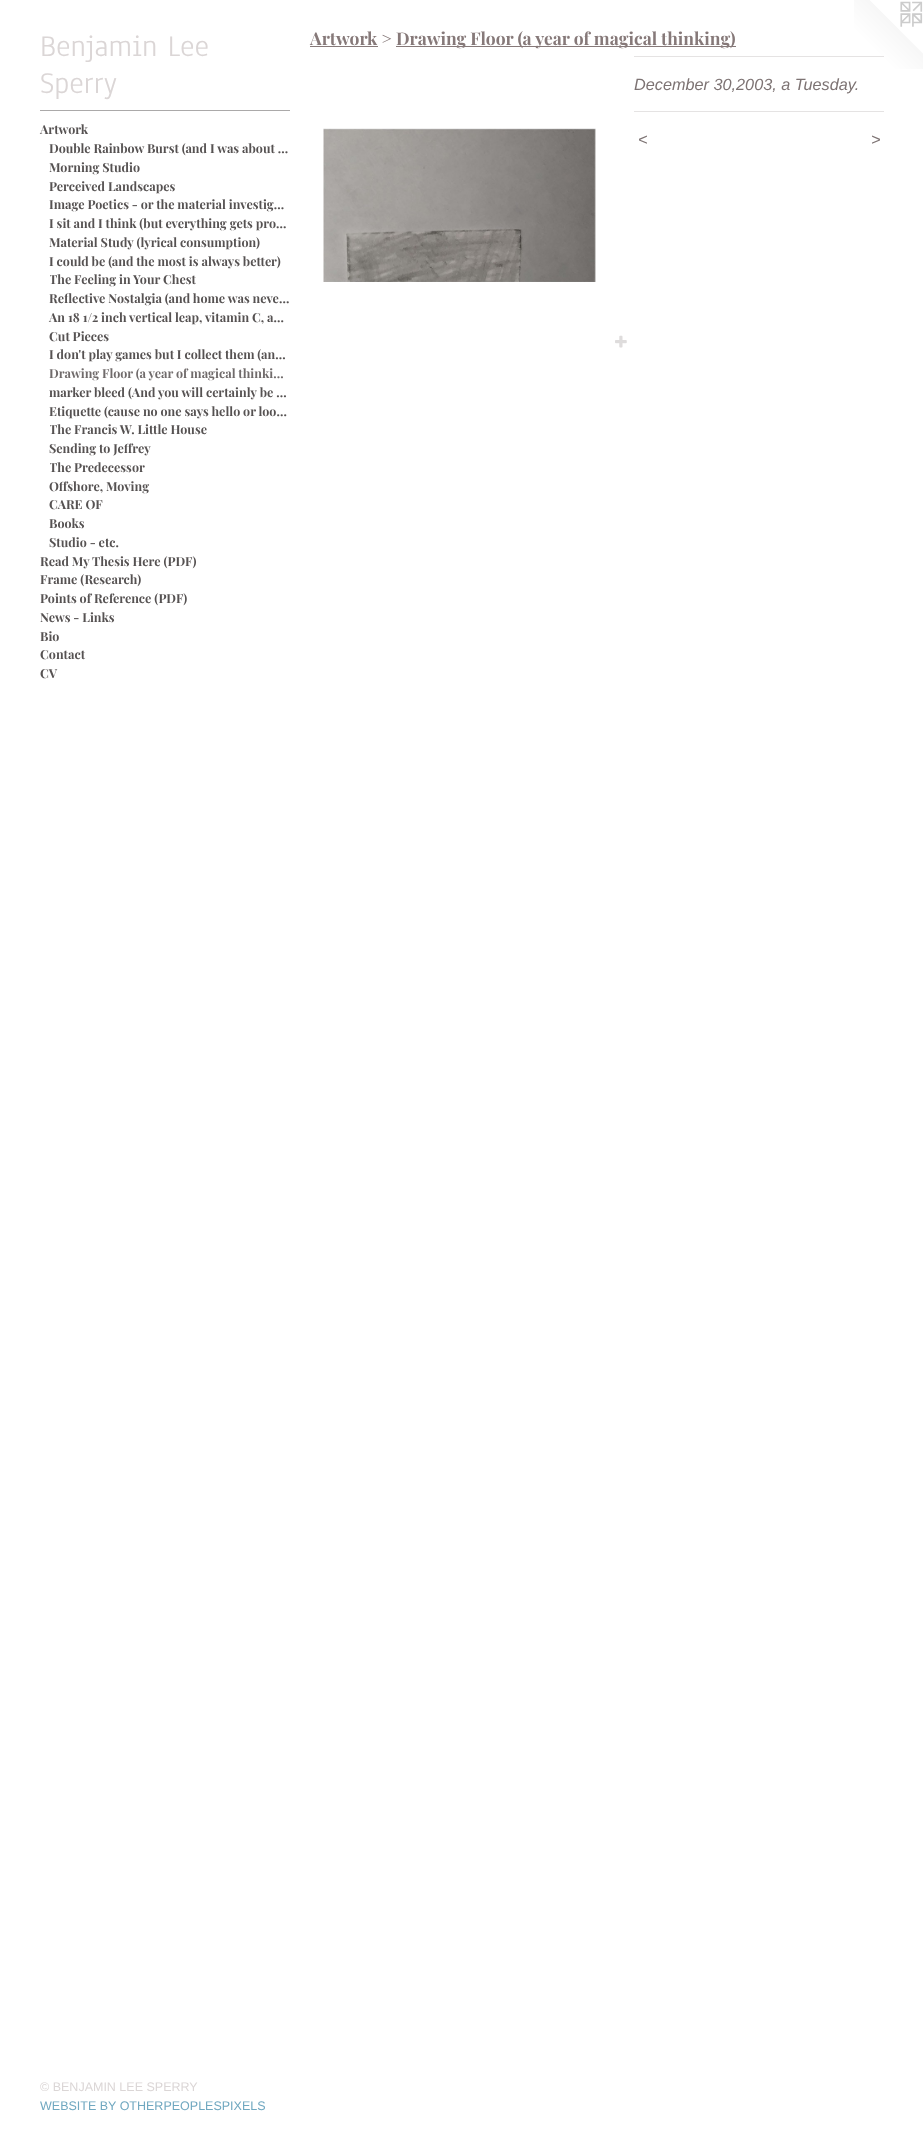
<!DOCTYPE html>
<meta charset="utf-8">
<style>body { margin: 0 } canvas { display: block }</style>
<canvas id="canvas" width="923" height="2143"></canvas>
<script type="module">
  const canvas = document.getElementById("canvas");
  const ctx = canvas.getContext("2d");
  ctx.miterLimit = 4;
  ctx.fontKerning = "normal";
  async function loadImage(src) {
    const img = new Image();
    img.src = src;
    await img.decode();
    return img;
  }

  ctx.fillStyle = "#ffffff";
  ctx.fillRect(0, 0, 923, 2143);
  ctx.font = "31.25px Anaheim";
  ctx.fillStyle = "#dbd6d6";
  ctx.fillText("Benjamin Lee", 40, 56);
  ctx.fillText("Sperry", 40, 93);
  ctx.fillStyle = "#aba9a9";
  ctx.fillRect(40, 110, 250, 1);
  ctx.font = "bold 12.5px Playfair Display";
  ctx.fillStyle = "#565252";
  ctx.fillText("Artwork", 40, 134);
  ctx.fillText("Double Rainbow Burst (and I was about …", 49, 153);
  ctx.fillText("Morning Studio", 49, 172);
  ctx.fillText("Perceived Landscapes", 49, 191);
  ctx.fillText("Image Poetics - or the material investig…", 49, 209);
  ctx.fillText("I sit and I think (but everything gets pro…", 49, 228);
  ctx.fillText("Material Study (lyrical consumption)", 49, 247);
  ctx.fillText("I could be (and the most is always better)", 49, 266);
  ctx.save();
  ctx.beginPath();
  ctx.rect(50, 271, 240, 19);
  ctx.clip();
  ctx.fillText("The Feeling in Your Chest", 49, 284);
  ctx.restore();
  ctx.fillText("Reflective Nostalgia (and home was neve…", 49, 303);
  ctx.fillText("An 18 1/2 inch vertical leap, vitamin C, a…", 49, 322);
  ctx.fillText("Cut Pieces", 49, 341);
  ctx.fillText("I don't play games but I collect them (an…", 49, 359);
  ctx.fillStyle = "#706b6b";
  ctx.fillText("Drawing Floor (a year of magical thinki…", 49, 378);
  ctx.fillStyle = "#565252";
  ctx.fillText("marker bleed (And you will certainly be …", 49, 397);
  ctx.fillText("Etiquette (cause no one says hello or loo…", 49, 416);
  ctx.save();
  ctx.beginPath();
  ctx.rect(50, 421, 240, 19);
  ctx.clip();
  ctx.fillText("The Francis W. Little House", 49, 434);
  ctx.restore();
  ctx.fillText("Sending to Jeffrey", 49, 453);
  ctx.save();
  ctx.beginPath();
  ctx.rect(50, 459, 240, 19);
  ctx.clip();
  ctx.fillText("The Predecessor", 49, 472);
  ctx.restore();
  ctx.fillText("Offshore, Moving", 49, 491);
  ctx.fillText("CARE OF", 49, 509);
  ctx.fillText("Books", 49, 528);
  ctx.fillText("Studio - etc.", 49, 547);
  ctx.fillText("Read My Thesis Here (PDF)", 40, 566);
  ctx.fillText("Frame (Research)", 40, 584);
  ctx.fillText("Points of Reference (PDF)", 40, 603);
  ctx.fillText("News - Links", 40, 622);
  ctx.fillText("Bio", 40, 641);
  ctx.fillText("Contact", 40, 659);
  ctx.fillText("CV", 40, 678);
  ctx.font = "12.5px Liberation Sans";
  ctx.fillStyle = "#dbd6d6";
  ctx.fillText("© BENJAMIN LEE SPERRY", 40, 2091);
  ctx.fillStyle = "#70a8c0";
  ctx.fillText("WEBSITE BY OTHERPEOPLESPIXELS", 40, 2110);
  ctx.font = "bold 17.5px Playfair Display";
  ctx.fillStyle = "#867979";
  ctx.fillText("Artwork >", 310, 45);
  ctx.fillRect(310, 46, 68, 1);
  ctx.fillRect(396, 46, 340, 1);
  ctx.fillText("Drawing Floor (a year of magical thinking)", 396, 45);
  ctx.drawImage(await loadImage("img3.png"), 854, 0, 69, 69);
  ctx.fillStyle = "#e5e3e3";
  ctx.fillRect(634, 56, 250, 1);
  ctx.font = "italic 16.25px Liberation Sans";
  ctx.fillStyle = "#7d7373";
  ctx.fillText("December 30,2003, a Tuesday.", 634, 90);
  ctx.fillStyle = "#e5e3e3";
  ctx.fillRect(634, 111, 250, 1);
  ctx.letterSpacing = "1px";
  ctx.fillStyle = "#7d7373";
  ctx.fillText("<", 638, 145);
  ctx.fillText(">", 871, 145);
  ctx.drawImage(await loadImage("img1.png"), 323, 128, 273, 154);
  ctx.drawImage(await loadImage("img2.png"), 615, 335, 12, 13);
</script>
